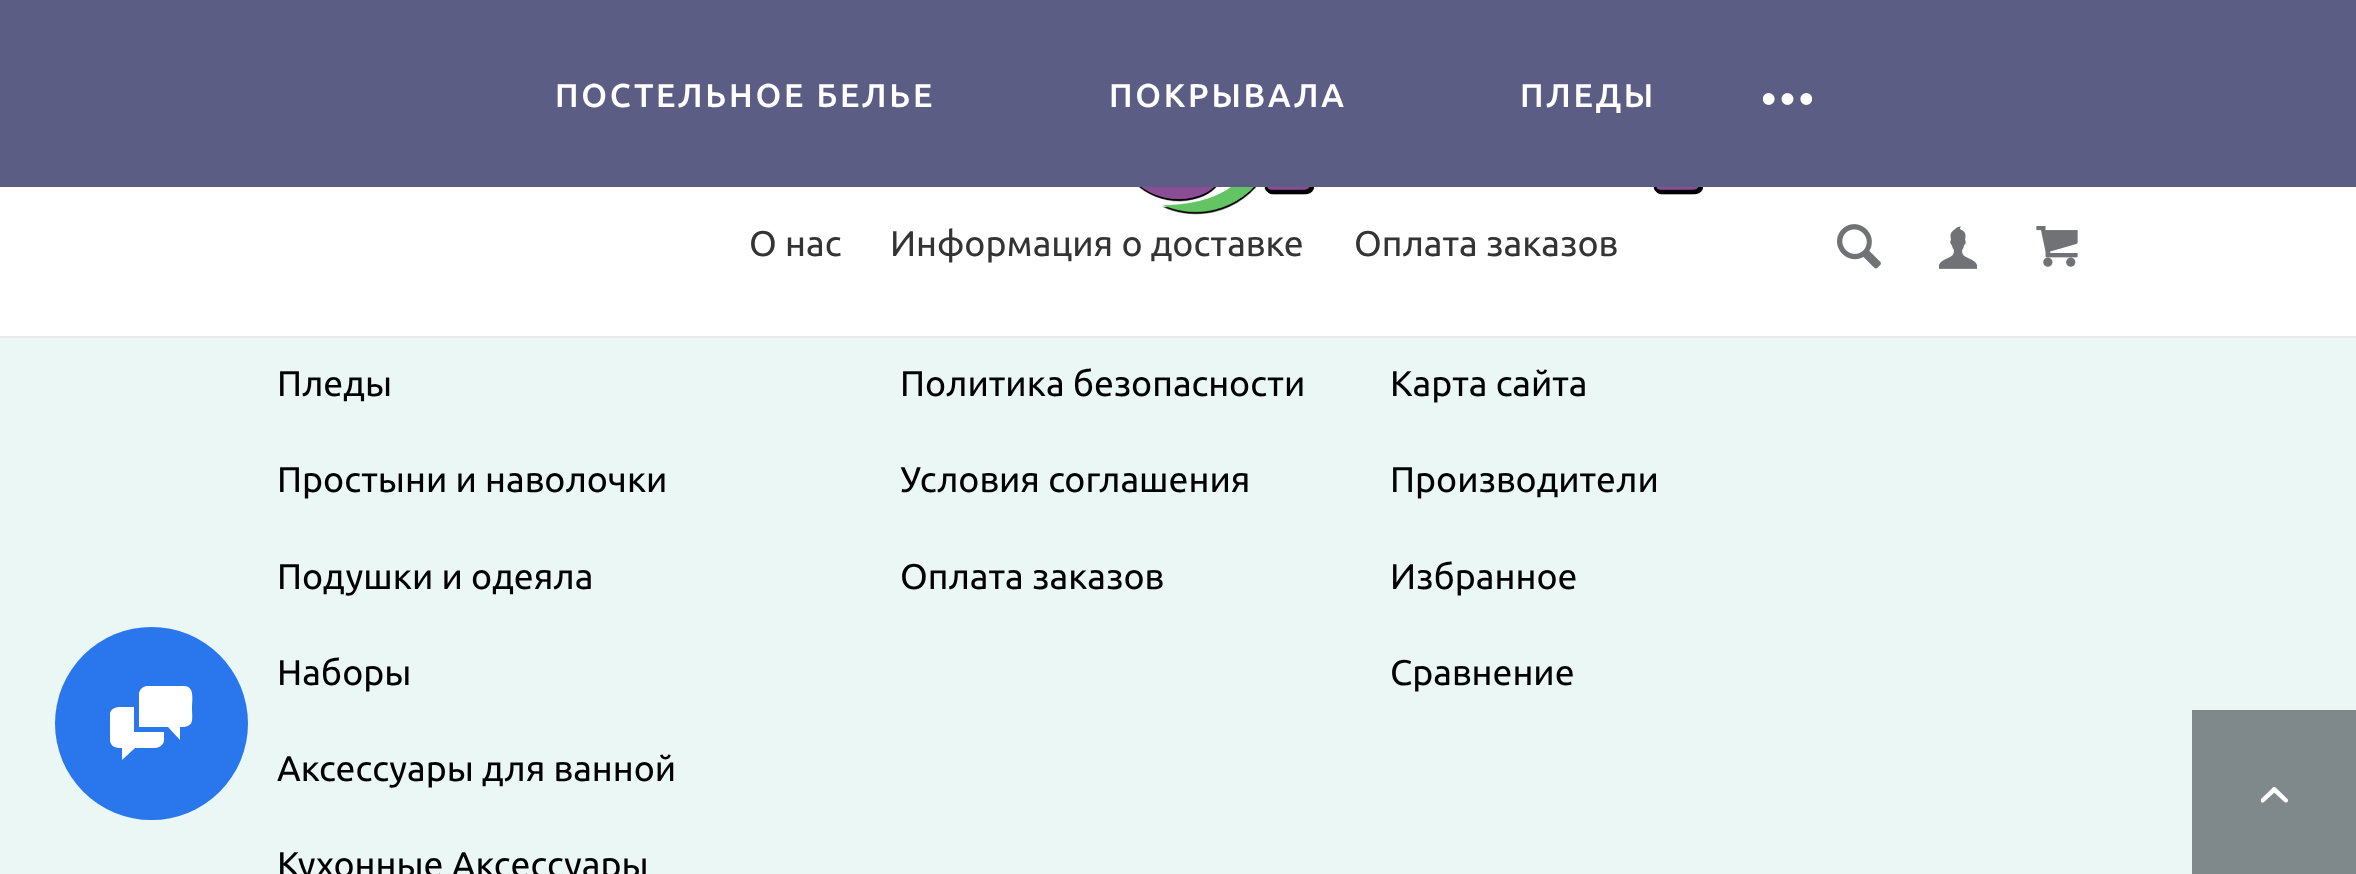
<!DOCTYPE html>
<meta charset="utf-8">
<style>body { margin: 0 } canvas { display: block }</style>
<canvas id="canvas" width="2356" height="874"></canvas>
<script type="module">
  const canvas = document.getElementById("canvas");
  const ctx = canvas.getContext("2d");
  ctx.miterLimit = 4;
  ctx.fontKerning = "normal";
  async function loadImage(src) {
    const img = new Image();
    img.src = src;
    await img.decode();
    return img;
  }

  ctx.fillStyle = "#eaf7f5";
  ctx.fillRect(0, 0, 2356, 874);
  ctx.strokeStyle = "#eaeaea";
  ctx.lineWidth = 3;
  ctx.strokeRect(-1.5, -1.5, 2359, 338);
  ctx.fillStyle = "#5b5d84";
  ctx.fillRect(0, 0, 2356, 187);
  ctx.letterSpacing = "2.75px";
  ctx.font = "500 33px Ubuntu";
  ctx.fillStyle = "#ffffff";
  ctx.fillText("ПОСТЕЛЬНОЕ БЕЛЬЕ", 555, 107);
  ctx.fillText("ПОКРЫВАЛА", 1109, 107);
  ctx.fillText("ПЛЕДЫ", 1520, 107);
  ctx.drawImage(await loadImage("img1.png"), 1763, 93, 49, 12);
  ctx.fillRect(0, 187, 2356, 149);
  ctx.drawImage(await loadImage("img2.png"), 1138, 187, 565, 28);
  ctx.letterSpacing = "0px";
  ctx.font = "35.75px Ubuntu";
  ctx.fillStyle = "#343434";
  ctx.fillText("О нас", 749, 256);
  ctx.fillText("Информация о доставке", 890, 256);
  ctx.fillText("Оплата заказов", 1354, 256);
  ctx.drawImage(await loadImage("img3.png"), 1837, 224, 44, 45);
  ctx.drawImage(await loadImage("img4.png"), 1939, 226, 38, 43);
  ctx.drawImage(await loadImage("img5.png"), 2036, 226, 42, 41);
  ctx.fillStyle = "#2a77ed";
  ctx.beginPath();
  ctx.arc(151.5, 723.5, 96.5, 0, Math.PI * 2);
  ctx.fill();
  ctx.save();
  ctx.beginPath();
  ctx.rect(110, 682, 83, 83);
  ctx.clip();
  ctx.fillStyle = "#ffffff";
  ctx.beginPath();
  ctx.moveTo(134, 732);
  ctx.lineTo(134, 707);
  ctx.lineTo(123, 707);
  ctx.bezierCurveTo(118, 707, 112, 707, 110, 713);
  ctx.lineTo(110, 727);
  ctx.bezierCurveTo(110, 740, 107, 748, 122, 748);
  ctx.lineTo(122, 760);
  ctx.lineTo(135, 748);
  ctx.lineTo(155, 748);
  ctx.bezierCurveTo(160, 748, 164, 744, 164, 740);
  ctx.lineTo(164, 732);
  ctx.closePath();
  ctx.moveTo(184, 686);
  ctx.lineTo(147, 686);
  ctx.bezierCurveTo(143, 686, 139, 690, 139, 694);
  ctx.lineTo(139, 727);
  ctx.lineTo(168, 727);
  ctx.lineTo(180, 740);
  ctx.lineTo(180, 727);
  ctx.bezierCurveTo(195, 727, 192, 720, 192, 707);
  ctx.bezierCurveTo(192, 700, 195, 686, 184, 686);
  ctx.closePath();
  ctx.fill();
  ctx.restore();
  ctx.fillStyle = "#000000";
  ctx.fillText("Пледы", 277, 396);
  ctx.fillText("Простыни и наволочки", 277, 492);
  ctx.fillText("Подушки и одеяла", 277, 589);
  ctx.fillText("Наборы", 277, 685);
  ctx.fillText("Аксессуары для ванной", 277, 781);
  ctx.fillText("Кухонные Аксессуары", 277, 877);
  ctx.fillText("Политика безопасности", 900, 396);
  ctx.fillText("Условия соглашения", 900, 492);
  ctx.fillText("Оплата заказов", 900, 589);
  ctx.fillText("Карта сайта", 1390, 396);
  ctx.fillText("Производители", 1390, 492);
  ctx.fillText("Избранное", 1390, 589);
  ctx.fillText("Сравнение", 1390, 685);
  ctx.fillStyle = "#7f888a";
  ctx.fillRect(2192, 710, 164, 164);
  ctx.drawImage(await loadImage("img6.png"), 2260, 786, 28, 17);
</script>
